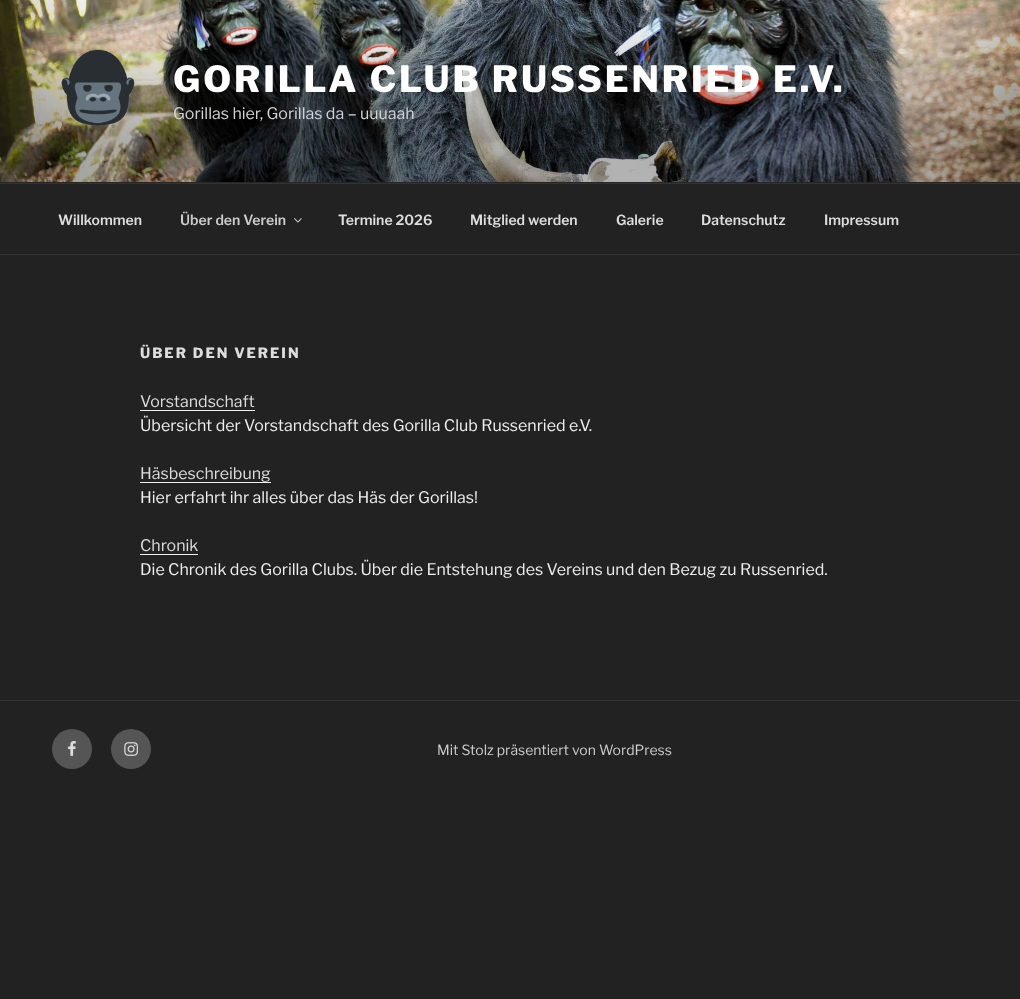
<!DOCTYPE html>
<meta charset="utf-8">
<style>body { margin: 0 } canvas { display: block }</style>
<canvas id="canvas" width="1020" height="999"></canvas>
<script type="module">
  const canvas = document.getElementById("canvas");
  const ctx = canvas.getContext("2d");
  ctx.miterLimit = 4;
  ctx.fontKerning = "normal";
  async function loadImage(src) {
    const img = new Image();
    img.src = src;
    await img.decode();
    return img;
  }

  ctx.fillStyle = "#222222";
  ctx.fillRect(0, 0, 1020, 999);
  ctx.fillStyle = "#262626";
  ctx.fillRect(0, 182, 1020, 1);
  ctx.drawImage(await loadImage("img1.png"), 0, 0, 1020, 182);
  ctx.drawImage(await loadImage("img2.png"), 61, 49, 74, 77);
  ctx.letterSpacing = "2.9px";
  ctx.font = "100 36px 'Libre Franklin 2'";
  ctx.fillStyle = "#ffffff";
  ctx.fillText("GORILLA CLUB RUSSENRIED E.V.", 173, 92);
  ctx.letterSpacing = "0px";
  ctx.font = "100 16px Libre Franklin";
  ctx.fillStyle = "#d3d3d4";
  ctx.fillText("Gorillas hier, Gorillas da – uuuaah", 173, 119);
  ctx.fillStyle = "#333333";
  ctx.fillRect(0, 183, 1020, 1);
  ctx.fillRect(0, 254, 1020, 1);
  ctx.font = "100 14px 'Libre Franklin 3'";
  ctx.fillStyle = "#dddddd";
  ctx.fillText("Willkommen", 58, 225);
  ctx.fillStyle = "#cccccc";
  ctx.fillText("Über den Verein", 180, 225);
  ctx.drawImage(await loadImage("img3.png"), 294, 218, 8, 5);
  ctx.fillStyle = "#dddddd";
  ctx.fillText("Termine 2026", 338, 225);
  ctx.fillText("Mitglied werden", 470, 225);
  ctx.fillText("Galerie", 616, 225);
  ctx.fillText("Datenschutz", 701, 225);
  ctx.fillText("Impressum", 824, 225);
  ctx.letterSpacing = "2px";
  ctx.font = "100 14px 'Libre Franklin 2'";
  ctx.fillText("ÜBER DEN VEREIN", 140, 358);
  ctx.letterSpacing = "0px";
  ctx.font = "100 16px Libre Franklin";
  ctx.fillText("Vorstandschaft", 140, 407);
  ctx.fillStyle = "#f0f0f0";
  ctx.fillRect(140, 410, 115, 1);
  ctx.fillStyle = "#eeeeee";
  ctx.fillText("Übersicht der Vorstandschaft des Gorilla Club Russenried e.V.", 140, 431);
  ctx.fillStyle = "#dddddd";
  ctx.fillText("Häsbeschreibung", 140, 479);
  ctx.fillStyle = "#f0f0f0";
  ctx.fillRect(140, 482, 131, 1);
  ctx.fillStyle = "#eeeeee";
  ctx.fillText("Hier erfahrt ihr alles über das Häs der Gorillas!", 140, 503);
  ctx.fillStyle = "#dddddd";
  ctx.fillText("Chronik", 140, 551);
  ctx.fillStyle = "#f0f0f0";
  ctx.fillRect(140, 554, 58, 1);
  ctx.fillStyle = "#eeeeee";
  ctx.fillText("Die Chronik des Gorilla Clubs. Über die Entstehung des Vereins und den Bezug zu Russenried.", 140, 575);
  ctx.fillStyle = "#333333";
  ctx.fillRect(0, 700, 1020, 1);
  ctx.fillStyle = "#555555";
  ctx.beginPath();
  ctx.arc(72, 749, 20, 0, Math.PI * 2);
  ctx.fill();
  ctx.drawImage(await loadImage("img4.png"), 68, 741, 8, 15);
  ctx.beginPath();
  ctx.arc(131, 749, 20, 0, Math.PI * 2);
  ctx.fill();
  ctx.drawImage(await loadImage("img5.png"), 124, 742, 14, 14);
  ctx.font = "100 14px Libre Franklin";
  ctx.fillStyle = "#cccccc";
  ctx.fillText("Mit Stolz präsentiert von WordPress", 437, 755);
</script>
